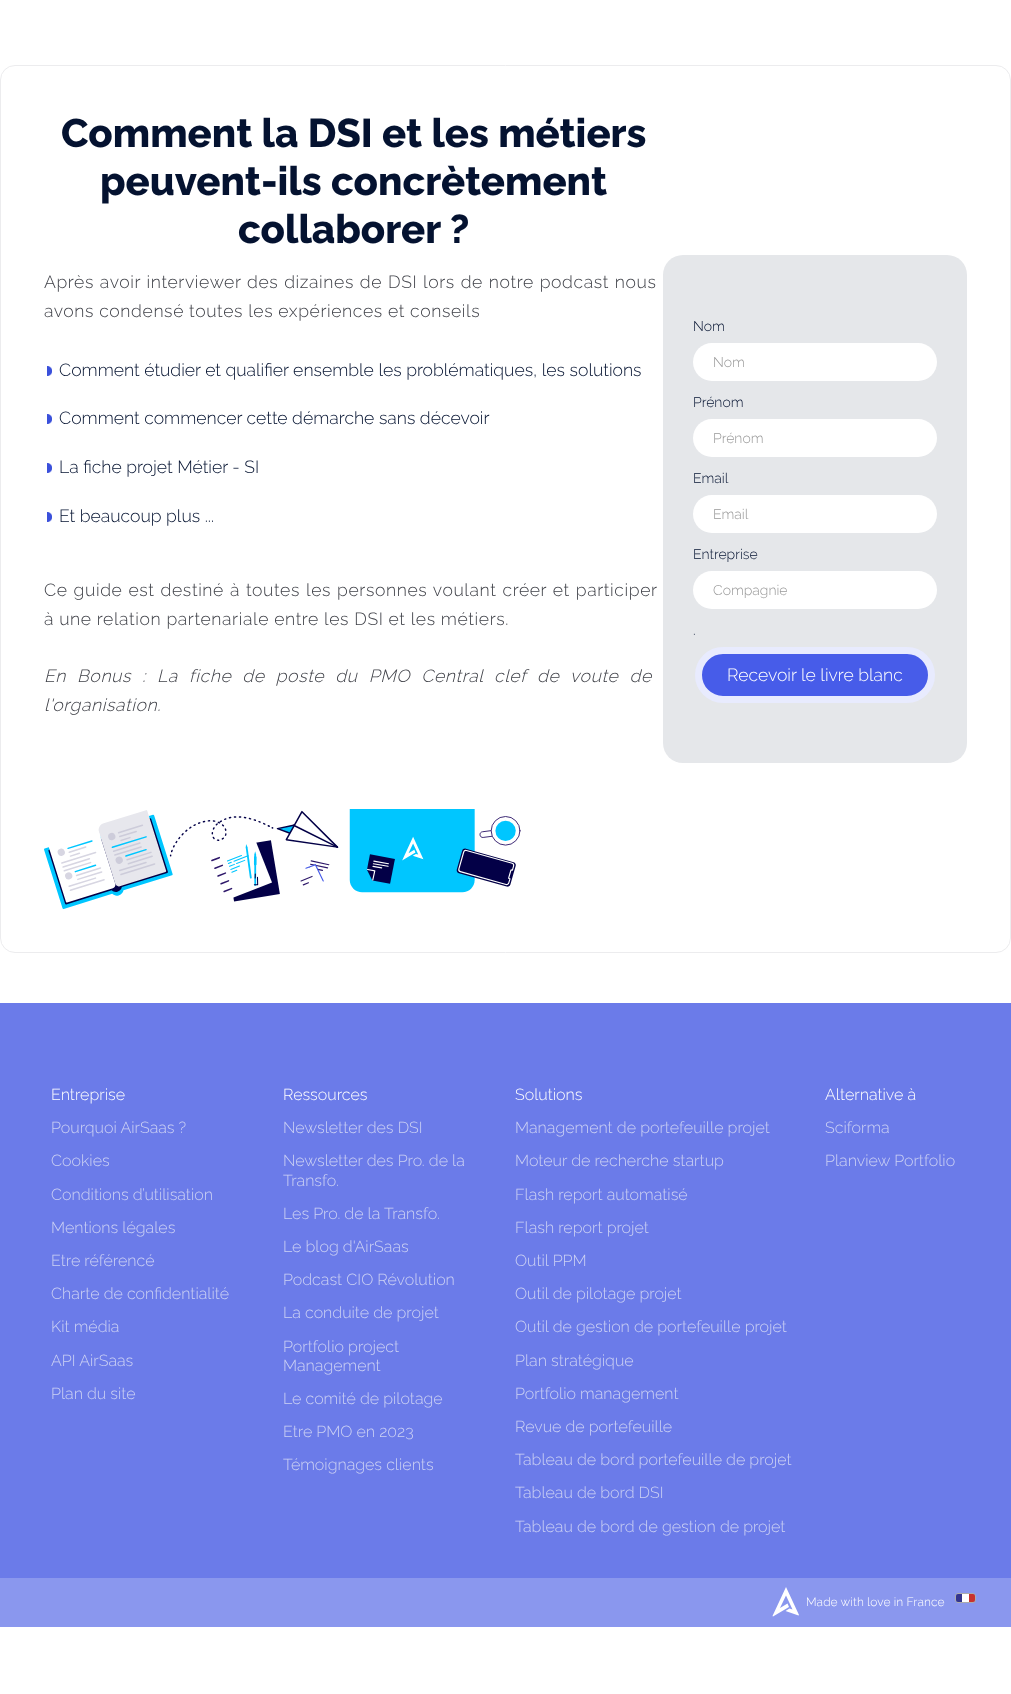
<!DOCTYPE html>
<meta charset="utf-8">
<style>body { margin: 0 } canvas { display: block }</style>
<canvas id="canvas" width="1011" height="1694"></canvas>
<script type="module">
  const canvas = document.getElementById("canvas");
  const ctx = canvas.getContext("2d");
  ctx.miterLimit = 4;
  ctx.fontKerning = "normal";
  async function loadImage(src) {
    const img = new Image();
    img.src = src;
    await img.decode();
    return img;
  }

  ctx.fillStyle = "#ffffff";
  ctx.fillRect(0, 0, 1011, 1694);
  ctx.beginPath();
  ctx.roundRect(0.5, 65.5, 1010, 887, 14.5);
  ctx.strokeStyle = "#ececee";
  ctx.stroke();
  ctx.font = "800 40px Raleway";
  ctx.fillStyle = "#041230";
  ctx.fillText("Comment la DSI et les métiers", 61, 147);
  ctx.fillText("peuvent-ils concrètement", 100, 195);
  ctx.fillText("collaborer ?", 238, 243);
  ctx.letterSpacing = "0.6px";
  ctx.wordSpacing = "0.75px";
  ctx.font = "300 17.6px Raleway";
  ctx.fillStyle = "#404249";
  ctx.fillText("Après avoir interviewer des dizaines de DSI lors de notre podcast nous", 44, 288);
  ctx.wordSpacing = "0px";
  ctx.fillText("avons condensé toutes les expériences et conseils", 44, 317);
  ctx.drawImage(await loadImage("img1.png"), 47, 366, 5, 10);
  ctx.letterSpacing = "0px";
  ctx.fillStyle = "#041230";
  ctx.fillText("Comment étudier et qualifier ensemble les problématiques, les solutions", 59, 376);
  ctx.drawImage(await loadImage("img1.png"), 47, 414, 5, 10);
  ctx.fillText("Comment commencer cette démarche sans décevoir", 59, 424);
  ctx.drawImage(await loadImage("img1.png"), 47, 463, 5, 10);
  ctx.fillText("La fiche projet Métier - SI", 59, 473);
  ctx.drawImage(await loadImage("img1.png"), 47, 512, 5, 10);
  ctx.fillText("Et beaucoup plus ...", 59, 522);
  ctx.letterSpacing = "0.6px";
  ctx.wordSpacing = "0.9px";
  ctx.fillStyle = "#404249";
  ctx.fillText("Ce guide est destiné à toutes les personnes voulant créer et participer", 44, 596);
  ctx.wordSpacing = "0px";
  ctx.fillText("à une relation partenariale entre les DSI et les métiers.", 44, 625);
  ctx.wordSpacing = "6px";
  ctx.font = "italic 300 17.6px Raleway";
  ctx.fillText("En Bonus : La fiche de poste du PMO Central clef de voute de", 44, 682);
  ctx.wordSpacing = "0px";
  ctx.fillText("l'organisation.", 44, 711);
  ctx.drawImage(await loadImage("img2.png"), 44, 809, 477, 100);
  ctx.fillStyle = "#e5e7ea";
  ctx.beginPath();
  ctx.roundRect(663, 255, 304, 508, 20);
  ctx.fill();
  ctx.letterSpacing = "0px";
  ctx.font = "300 14px Raleway";
  ctx.fillStyle = "#041230";
  ctx.fillText("Nom", 693, 331);
  ctx.fillStyle = "#ffffff";
  ctx.beginPath();
  ctx.roundRect(693, 343, 244, 38, 19);
  ctx.fill();
  ctx.fillStyle = "#999999";
  ctx.fillText("Nom", 713, 367);
  ctx.fillStyle = "#041230";
  ctx.fillText("Prénom", 693, 407);
  ctx.fillStyle = "#ffffff";
  ctx.beginPath();
  ctx.roundRect(693, 419, 244, 38, 19);
  ctx.fill();
  ctx.fillStyle = "#999999";
  ctx.fillText("Prénom", 713, 443);
  ctx.fillStyle = "#041230";
  ctx.fillText("Email", 693, 483);
  ctx.fillStyle = "#ffffff";
  ctx.beginPath();
  ctx.roundRect(693, 495, 244, 38, 19);
  ctx.fill();
  ctx.fillStyle = "#999999";
  ctx.fillText("Email", 713, 519);
  ctx.fillStyle = "#041230";
  ctx.fillText("Entreprise", 693, 559);
  ctx.fillStyle = "#ffffff";
  ctx.beginPath();
  ctx.roundRect(693, 571, 244, 38, 19);
  ctx.fill();
  ctx.fillStyle = "#999999";
  ctx.fillText("Compagnie", 713, 595);
  ctx.fillStyle = "#041230";
  ctx.fillText(".", 693, 635);
  ctx.fillStyle = "#475ce9";
  ctx.beginPath();
  ctx.roundRect(698.5, 650.5, 233, 49, 24.5);
  ctx.fill();
  ctx.strokeStyle = "#e8ebfe";
  ctx.lineWidth = 7;
  ctx.stroke();
  ctx.font = "300 17.6px Raleway";
  ctx.fillStyle = "#ffffff";
  ctx.fillText("Recevoir le livre blanc", 727, 681);
  ctx.fillStyle = "#6b7be9";
  ctx.fillRect(0, 1003, 1011, 575);
  ctx.font = "300 16px Raleway";
  ctx.fillStyle = "#ffffff";
  ctx.fillText("Entreprise", 51, 1100);
  ctx.fillStyle = "#cdd2f4";
  ctx.fillText("Pourquoi AirSaas ?", 51, 1133);
  ctx.fillText("Cookies", 51, 1166);
  ctx.fillText("Conditions d’utilisation", 51, 1200);
  ctx.fillText("Mentions légales", 51, 1233);
  ctx.fillText("Etre référencé", 51, 1266);
  ctx.fillText("Charte de confidentialité", 51, 1299);
  ctx.fillText("Kit média", 51, 1332);
  ctx.fillText("API AirSaas", 51, 1366);
  ctx.fillText("Plan du site", 51, 1399);
  ctx.fillStyle = "#ffffff";
  ctx.fillText("Ressources", 283, 1100);
  ctx.fillStyle = "#cdd2f4";
  ctx.fillText("Newsletter des DSI", 283, 1133);
  ctx.fillText("Newsletter des Pro. de la", 283, 1166);
  ctx.fillText("Transfo.", 283, 1186);
  ctx.fillText("Les Pro. de la Transfo.", 283, 1219);
  ctx.fillText("Le blog d'AirSaas", 283, 1252);
  ctx.fillText("Podcast CIO Révolution", 283, 1285);
  ctx.fillText("La conduite de projet", 283, 1318);
  ctx.fillText("Portfolio project", 283, 1352);
  ctx.fillText("Management", 283, 1371);
  ctx.fillText("Le comité de pilotage", 283, 1404);
  ctx.fillText("Etre PMO en 2023", 283, 1437);
  ctx.fillText("Témoignages clients", 283, 1470);
  ctx.fillStyle = "#ffffff";
  ctx.fillText("Solutions", 515, 1100);
  ctx.fillStyle = "#cdd2f4";
  ctx.fillText("Management de portefeuille projet", 515, 1133);
  ctx.fillText("Moteur de recherche startup", 515, 1166);
  ctx.fillText("Flash report automatisé", 515, 1200);
  ctx.fillText("Flash report projet", 515, 1233);
  ctx.fillText("Outil PPM", 515, 1266);
  ctx.fillText("Outil de pilotage projet", 515, 1299);
  ctx.fillText("Outil de gestion de portefeuille projet", 515, 1332);
  ctx.fillText("Plan stratégique", 515, 1366);
  ctx.fillText("Portfolio management", 515, 1399);
  ctx.fillText("Revue de portefeuille", 515, 1432);
  ctx.fillText("Tableau de bord portefeuille de projet", 515, 1465);
  ctx.fillText("Tableau de bord DSI", 515, 1498);
  ctx.fillText("Tableau de bord de gestion de projet", 515, 1532);
  ctx.fillStyle = "#ffffff";
  ctx.fillText("Alternative à", 825, 1100);
  ctx.fillStyle = "#cdd2f4";
  ctx.fillText("Sciforma", 825, 1133);
  ctx.fillText("Planview Portfolio", 825, 1166);
  ctx.fillStyle = "#8a97ee";
  ctx.fillRect(0, 1578, 1011, 49);
  ctx.fillStyle = "#ffffff";
  ctx.beginPath();
  ctx.moveTo(786, 1587);
  ctx.lineTo(772.5, 1616);
  ctx.lineTo(773, 1616.5);
  ctx.lineTo(789, 1607);
  ctx.lineTo(787.5, 1603.5);
  ctx.lineTo(780, 1608);
  ctx.lineTo(786, 1595.5);
  ctx.lineTo(792.5, 1609.5);
  ctx.lineTo(789.5, 1608.5);
  ctx.lineTo(785.5, 1611);
  ctx.lineTo(798.5, 1615.5);
  ctx.lineTo(799, 1615);
  ctx.closePath();
  ctx.fill();
  ctx.letterSpacing = "0.1px";
  ctx.font = "300 12px Raleway";
  ctx.fillText("Made with love in France", 806, 1606);
  ctx.beginPath();
  ctx.roundRect(955.5, 1593.5, 20, 9, 2.5);
  ctx.strokeStyle = "#acacac";
  ctx.lineWidth = 1;
  ctx.stroke();
  ctx.fillStyle = "#33348e";
  ctx.beginPath();
  ctx.roundRect(956, 1594, 6, 8, [2, 0, 0, 2]);
  ctx.fill();
  ctx.fillStyle = "#ffffff";
  ctx.fillRect(962, 1594, 7, 8);
  ctx.fillStyle = "#c9322d";
  ctx.beginPath();
  ctx.roundRect(969, 1594, 6, 8, [0, 2, 2, 0]);
  ctx.fill();
</script>
